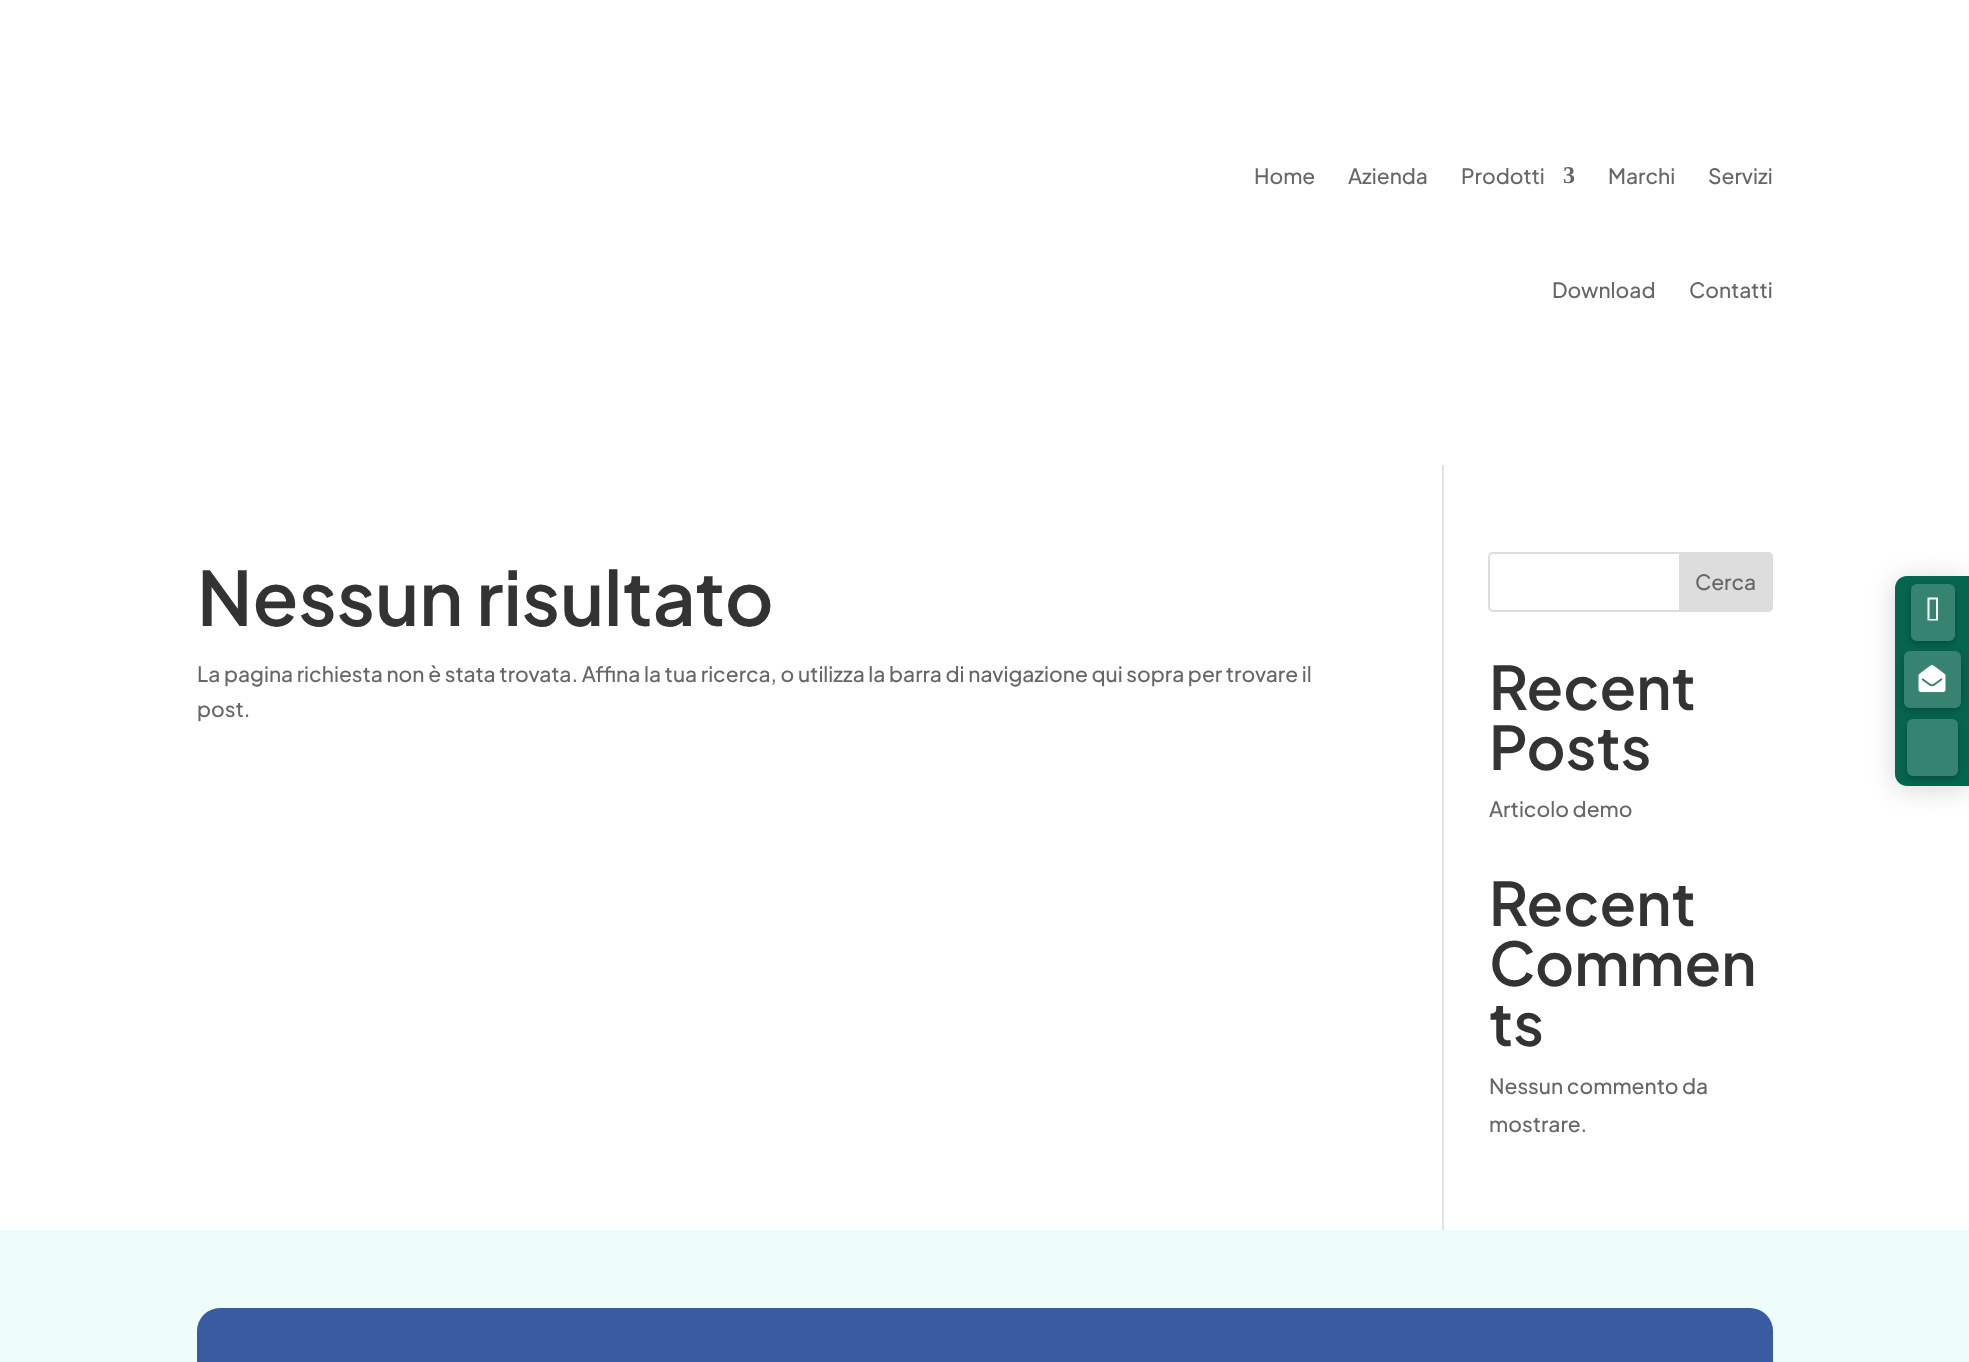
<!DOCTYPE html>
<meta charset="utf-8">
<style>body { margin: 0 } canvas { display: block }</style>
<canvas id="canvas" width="1969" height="1362"></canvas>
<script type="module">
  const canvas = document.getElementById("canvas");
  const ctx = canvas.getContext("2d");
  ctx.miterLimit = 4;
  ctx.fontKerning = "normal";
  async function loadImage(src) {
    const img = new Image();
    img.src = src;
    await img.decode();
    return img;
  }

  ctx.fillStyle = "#eefcfa";
  ctx.fillRect(0, 0, 1969, 1362);
  ctx.fillStyle = "#ffffff";
  ctx.fillRect(0, 0, 1969, 1230);
  ctx.font = "500 21px Plus Jakarta Sans";
  ctx.fillStyle = "#666666";
  ctx.fillText("Home", 1254, 184);
  ctx.fillText("Azienda", 1348, 184);
  ctx.fillText("Prodotti", 1461, 184);
  ctx.font = "bold 24px Liberation Serif";
  ctx.fillText("3", 1563, 183);
  ctx.font = "500 21px Plus Jakarta Sans";
  ctx.fillText("Marchi", 1608, 184);
  ctx.fillText("Servizi", 1708, 184);
  ctx.fillText("Download", 1552, 298);
  ctx.fillText("Contatti", 1689, 298);
  ctx.fillStyle = "rgba(0, 0, 0, 0.16)";
  ctx.filter = "blur(13.5px)";
  ctx.beginPath();
  ctx.roundRect(1895, 579, 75, 210, 12);
  ctx.fill();
  ctx.filter = "none";
  ctx.fillStyle = "#06654f";
  ctx.beginPath();
  ctx.moveTo(1907, 576);
  ctx.lineTo(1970, 576);
  ctx.lineTo(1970, 786);
  ctx.lineTo(1907, 786);
  ctx.bezierCurveTo(1900.5, 786, 1895, 780.5, 1895, 774);
  ctx.lineTo(1895, 588);
  ctx.bezierCurveTo(1895, 581.5, 1900.5, 576, 1907, 576);
  ctx.closePath();
  ctx.fill();
  ctx.save();
  ctx.beginPath();
  ctx.moveTo(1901, 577);
  ctx.lineTo(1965, 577);
  ctx.lineTo(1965, 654);
  ctx.lineTo(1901, 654);
  ctx.closePath();
  ctx.moveTo(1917, 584);
  ctx.lineTo(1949, 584);
  ctx.bezierCurveTo(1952.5, 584, 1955, 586.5, 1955, 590);
  ctx.lineTo(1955, 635);
  ctx.bezierCurveTo(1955, 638.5, 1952.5, 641, 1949, 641);
  ctx.lineTo(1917, 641);
  ctx.bezierCurveTo(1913.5, 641, 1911, 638.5, 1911, 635);
  ctx.lineTo(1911, 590);
  ctx.bezierCurveTo(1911, 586.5, 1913.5, 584, 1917, 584);
  ctx.closePath();
  ctx.clip("evenodd");
  ctx.fillStyle = "rgba(0, 0, 0, 0.22)";
  ctx.filter = "blur(3px)";
  ctx.beginPath();
  ctx.roundRect(1911, 587, 44, 57, 6);
  ctx.fill();
  ctx.filter = "none";
  ctx.restore();
  ctx.fillStyle = "rgba(255, 255, 255, 0.2)";
  ctx.beginPath();
  ctx.roundRect(1911, 584, 44, 57, 6);
  ctx.fill();
  ctx.fillStyle = "#ffffff";
  ctx.beginPath();
  ctx.moveTo(1929.5, 619);
  ctx.lineTo(1929.5, 599.5);
  ctx.lineTo(1936, 599.5);
  ctx.lineTo(1936, 619);
  ctx.closePath();
  ctx.moveTo(1927.5, 620.5);
  ctx.lineTo(1938, 620.5);
  ctx.lineTo(1938, 597.5);
  ctx.lineTo(1927.5, 597.5);
  ctx.closePath();
  ctx.fill();
  ctx.save();
  ctx.beginPath();
  ctx.moveTo(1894, 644);
  ctx.lineTo(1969, 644);
  ctx.lineTo(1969, 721);
  ctx.lineTo(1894, 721);
  ctx.closePath();
  ctx.moveTo(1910, 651);
  ctx.lineTo(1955, 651);
  ctx.bezierCurveTo(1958.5, 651, 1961, 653.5, 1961, 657);
  ctx.lineTo(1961, 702);
  ctx.bezierCurveTo(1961, 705.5, 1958.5, 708, 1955, 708);
  ctx.lineTo(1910, 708);
  ctx.bezierCurveTo(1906.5, 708, 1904, 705.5, 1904, 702);
  ctx.lineTo(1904, 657);
  ctx.bezierCurveTo(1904, 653.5, 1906.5, 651, 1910, 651);
  ctx.closePath();
  ctx.clip("evenodd");
  ctx.fillStyle = "rgba(0, 0, 0, 0.22)";
  ctx.filter = "blur(3px)";
  ctx.beginPath();
  ctx.roundRect(1904, 654, 57, 57, 6);
  ctx.fill();
  ctx.filter = "none";
  ctx.restore();
  ctx.fillStyle = "rgba(255, 255, 255, 0.2)";
  ctx.beginPath();
  ctx.roundRect(1904, 651, 57, 57, 6);
  ctx.fill();
  ctx.drawImage(await loadImage("img1.png"), 1918, 665, 28, 28);
  ctx.save();
  ctx.beginPath();
  ctx.moveTo(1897, 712);
  ctx.lineTo(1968, 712);
  ctx.lineTo(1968, 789);
  ctx.lineTo(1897, 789);
  ctx.closePath();
  ctx.moveTo(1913, 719);
  ctx.lineTo(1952, 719);
  ctx.bezierCurveTo(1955.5, 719, 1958, 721.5, 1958, 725);
  ctx.lineTo(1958, 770);
  ctx.bezierCurveTo(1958, 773.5, 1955.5, 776, 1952, 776);
  ctx.lineTo(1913, 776);
  ctx.bezierCurveTo(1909.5, 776, 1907, 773.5, 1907, 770);
  ctx.lineTo(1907, 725);
  ctx.bezierCurveTo(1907, 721.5, 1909.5, 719, 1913, 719);
  ctx.closePath();
  ctx.clip("evenodd");
  ctx.fillStyle = "rgba(0, 0, 0, 0.22)";
  ctx.filter = "blur(3px)";
  ctx.beginPath();
  ctx.roundRect(1907, 722, 51, 57, 6);
  ctx.fill();
  ctx.filter = "none";
  ctx.restore();
  ctx.beginPath();
  ctx.roundRect(1907, 719, 51, 57, 6);
  ctx.fill();
  ctx.fillStyle = "#395ba2";
  ctx.beginPath();
  ctx.roundRect(197, 1308, 1576, 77, 23);
  ctx.fill();
  ctx.fillStyle = "#e2e2e2";
  ctx.fillRect(1442, 465, 2, 765);
  ctx.font = "600 75px Plus Jakarta Sans";
  ctx.fillStyle = "#333333";
  ctx.fillText("Nessun risultato", 197, 626);
  ctx.font = "500 21px Plus Jakarta Sans";
  ctx.fillStyle = "#666666";
  ctx.fillText("La pagina richiesta non è stata trovata. Affina la tua ricerca, o utilizza la barra di navigazione qui sopra per trovare il", 197, 682);
  ctx.fillText("post.", 197, 717);
  ctx.beginPath();
  ctx.roundRect(1489, 553, 283, 58, 4);
  ctx.strokeStyle = "#dddddd";
  ctx.lineWidth = 2;
  ctx.stroke();
  ctx.fillStyle = "#dddddd";
  ctx.beginPath();
  ctx.roundRect(1680, 553, 92, 58, [0, 4, 4, 0]);
  ctx.fill();
  ctx.stroke();
  ctx.fillStyle = "#666666";
  ctx.fillText("Cerca", 1695, 590);
  ctx.font = "600 60px Plus Jakarta Sans";
  ctx.fillStyle = "#333333";
  ctx.fillText("Recent", 1489, 710);
  ctx.fillText("Posts", 1489, 770);
  ctx.font = "500 21px Plus Jakarta Sans";
  ctx.fillStyle = "#666666";
  ctx.fillText("Articolo demo", 1489, 817);
  ctx.font = "600 60px Plus Jakarta Sans";
  ctx.fillStyle = "#333333";
  ctx.fillText("Recent", 1489, 926);
  ctx.fillText("Commen", 1489, 986);
  ctx.fillText("ts", 1489, 1046);
  ctx.font = "500 21px Plus Jakarta Sans";
  ctx.fillStyle = "#666666";
  ctx.fillText("Nessun commento da", 1489, 1094);
  ctx.fillText("mostrare.", 1489, 1132);
</script>
